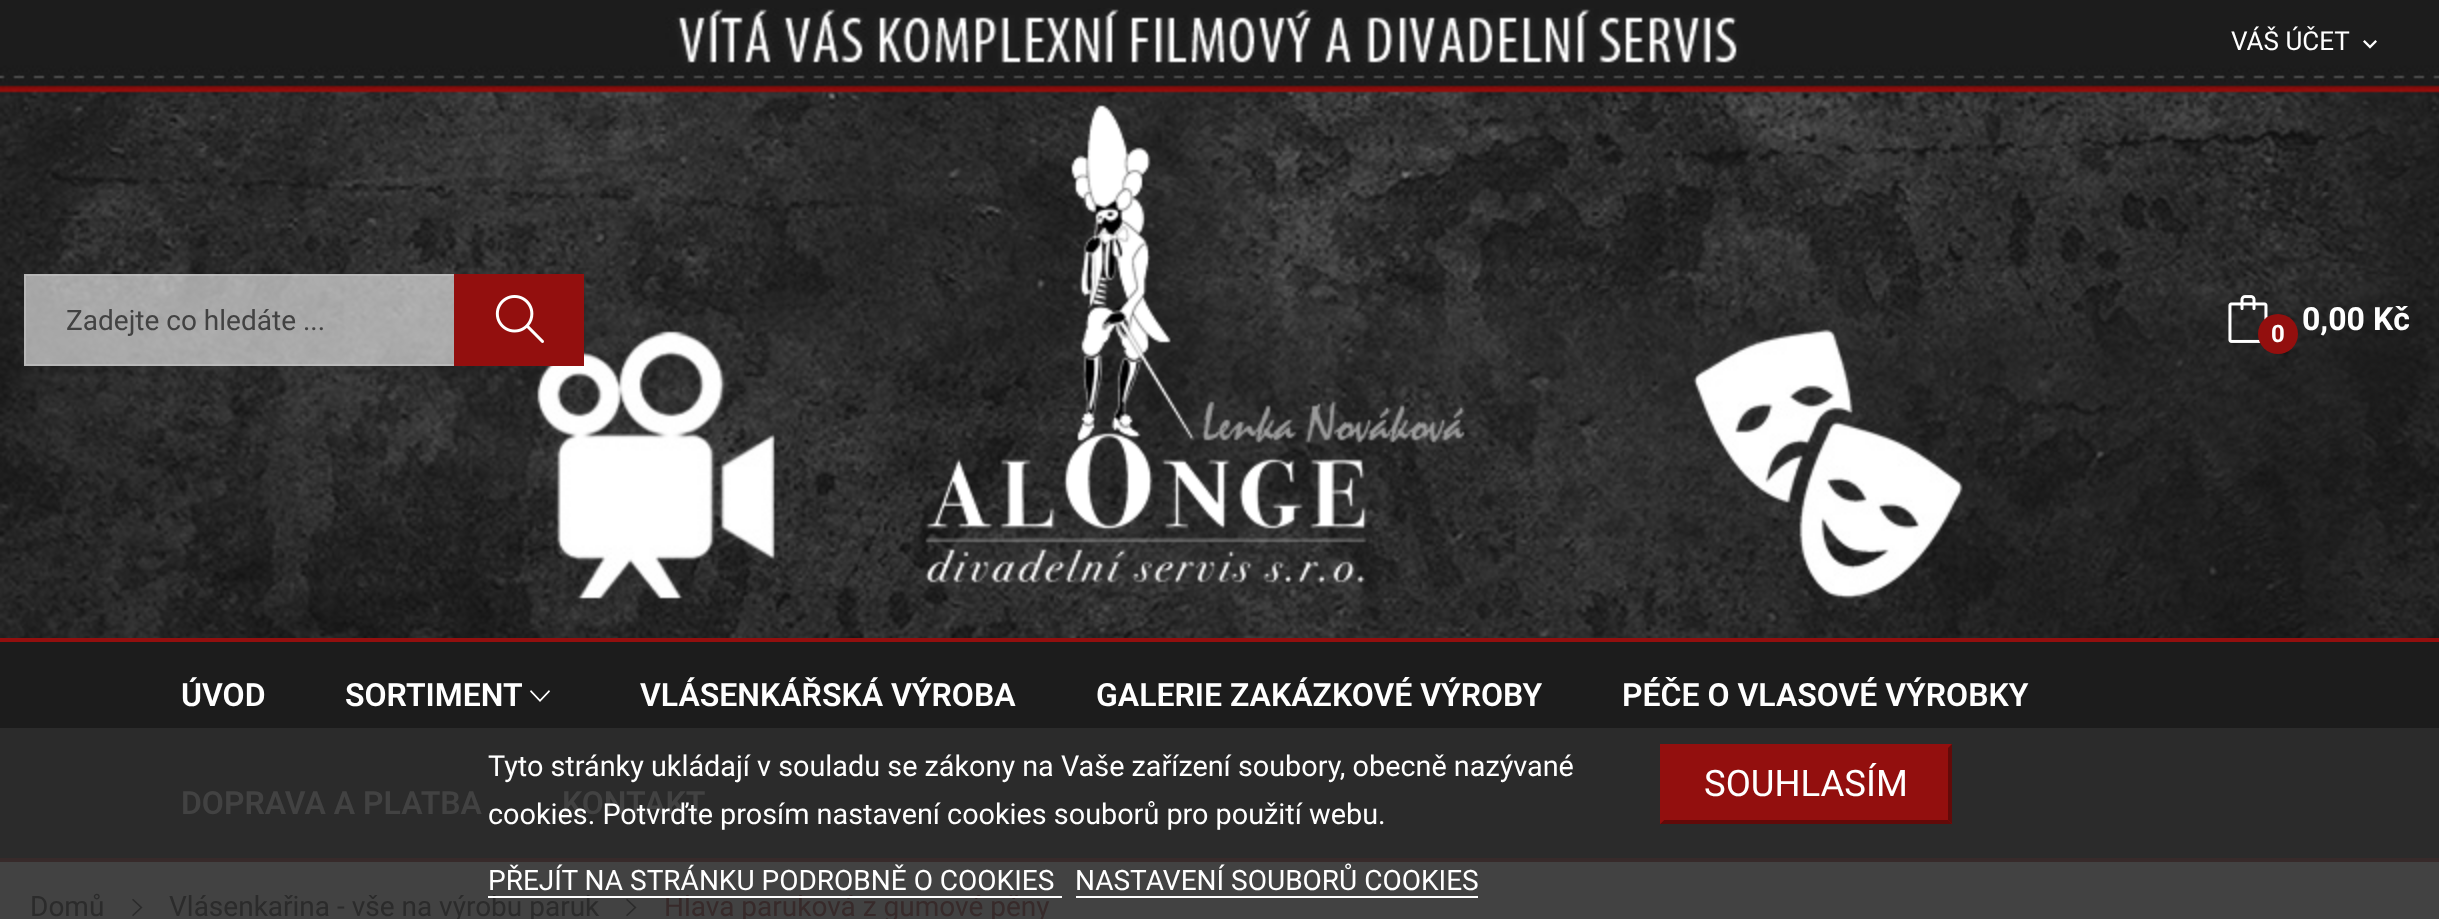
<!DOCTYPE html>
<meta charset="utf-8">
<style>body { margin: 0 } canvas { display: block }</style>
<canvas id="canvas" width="2439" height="919"></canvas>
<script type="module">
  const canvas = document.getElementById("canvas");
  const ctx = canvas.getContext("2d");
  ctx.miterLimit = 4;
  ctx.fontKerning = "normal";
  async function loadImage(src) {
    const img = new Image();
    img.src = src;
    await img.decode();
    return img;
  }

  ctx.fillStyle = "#424242";
  ctx.fillRect(0, 0, 2439, 919);
  ctx.drawImage(await loadImage("img2.png"), 0, 8, 2439, 630);
  ctx.font = "26px Roboto";
  ctx.fillStyle = "#ffffff";
  ctx.fillText("VÁŠ ÚČET", 2231, 50);
  ctx.drawImage(await loadImage("img1.png"), 2363, 40, 14, 9);
  ctx.fillStyle = "#1c1c1c";
  ctx.fillRect(0, 0, 2439, 8);
  ctx.fillStyle = "#930f0e";
  ctx.fillRect(0, 638, 2439, 4);
  ctx.drawImage(await loadImage("img3.png"), 925, 104, 540, 479);
  ctx.fillStyle = "rgba(255, 255, 255, 0.6)";
  ctx.fillRect(24, 274, 430, 92);
  ctx.strokeStyle = "rgba(195, 195, 195, 0.6)";
  ctx.lineWidth = 2;
  ctx.strokeRect(25, 275, 558, 90);
  ctx.font = "28px Roboto";
  ctx.fillStyle = "#424242";
  ctx.fillText("Zadejte co hledáte ...", 66, 330);
  ctx.fillStyle = "#930f0e";
  ctx.fillRect(454, 274, 130, 92);
  ctx.drawImage(await loadImage("img4.png"), 495, 295, 49, 48);
  ctx.drawImage(await loadImage("img5.png"), 2228, 295, 40, 48);
  ctx.beginPath();
  ctx.arc(2278, 334, 20, 0, Math.PI * 2);
  ctx.fill();
  ctx.font = "bold 24px Roboto";
  ctx.fillStyle = "#ffffff";
  ctx.fillText("0", 2271, 342);
  ctx.font = "bold 32px Roboto";
  ctx.fillText("0,00 Kč", 2302, 330);
  ctx.fillStyle = "#1c1c1c";
  ctx.fillRect(0, 642, 2439, 86);
  ctx.fillStyle = "#2b2b2b";
  ctx.fillRect(0, 728, 2439, 130);
  ctx.fillStyle = "#372a2a";
  ctx.fillRect(0, 858, 2439, 4);
  ctx.font = "600 32px Roboto";
  ctx.fillStyle = "#ffffff";
  ctx.fillText("ÚVOD", 181, 706);
  ctx.fillText("SORTIMENT", 345, 706);
  ctx.beginPath();
  ctx.moveTo(549, 690);
  ctx.lineTo(550, 691.5);
  ctx.lineTo(540, 702);
  ctx.lineTo(530, 691.5);
  ctx.lineTo(531, 690);
  ctx.lineTo(540, 699.5);
  ctx.closePath();
  ctx.fill();
  ctx.fillText("VLÁSENKÁŘSKÁ VÝROBA", 640, 706);
  ctx.fillText("GALERIE ZAKÁZKOVÉ VÝROBY", 1096, 706);
  ctx.fillText("PÉČE O VLASOVÉ VÝROBKY", 1622, 706);
  ctx.fillStyle = "#424242";
  ctx.fillText("DOPRAVA A PLATBA", 181, 814);
  ctx.fillText("KONTAKT", 562, 814);
  ctx.font = "28.8px Roboto";
  ctx.fillStyle = "#ffffff";
  ctx.fillText("Tyto stránky ukládají v souladu se zákony na Vaše zařízení soubory, obecně nazývané", 488, 776);
  ctx.fillText("cookies. Potvrďte prosím nastavení cookies souborů pro použití webu.", 488, 824);
  ctx.font = "28px Roboto";
  ctx.fillText("PŘEJÍT NA STRÁNKU PODROBNĚ O COOKIES", 488, 890);
  ctx.fillStyle = "#2b2b2b";
  ctx.fillText("Vlásenkařina - vše na výrobu paruk", 169, 916);
  ctx.fillStyle = "#372a2a";
  ctx.fillText("Hlava paruková z gumové pěny", 664, 916);
  ctx.fillStyle = "#ffffff";
  ctx.fillRect(488, 896, 574, 2);
  ctx.fillText("NASTAVENÍ SOUBORŮ COOKIES", 1075, 890);
  ctx.fillRect(1076, 896, 402, 2);
  ctx.fillStyle = "#930f0e";
  ctx.fillRect(1660, 744, 292, 80);
  ctx.fillStyle = "#620a09";
  ctx.beginPath();
  ctx.moveTo(1952, 744);
  ctx.lineTo(1952, 824);
  ctx.lineTo(1948, 820);
  ctx.lineTo(1948, 748);
  ctx.closePath();
  ctx.fill();
  ctx.beginPath();
  ctx.moveTo(1952, 824);
  ctx.lineTo(1660, 824);
  ctx.lineTo(1664, 820);
  ctx.lineTo(1948, 820);
  ctx.closePath();
  ctx.fill();
  ctx.fillStyle = "#930f0e";
  ctx.beginPath();
  ctx.moveTo(1660, 824);
  ctx.lineTo(1660, 744);
  ctx.lineTo(1664, 748);
  ctx.lineTo(1664, 820);
  ctx.closePath();
  ctx.fill();
  ctx.font = "36.5px Roboto";
  ctx.fillStyle = "#ffffff";
  ctx.fillText("SOUHLASÍM", 1704, 796);
  ctx.font = "28px Roboto";
  ctx.fillStyle = "#2b2b2b";
  ctx.fillText("Domů", 30, 916);
  ctx.drawImage(await loadImage("img6.png"), 132, 898, 11, 19);
  ctx.drawImage(await loadImage("img6.png"), 626, 898, 11, 19);
</script>
